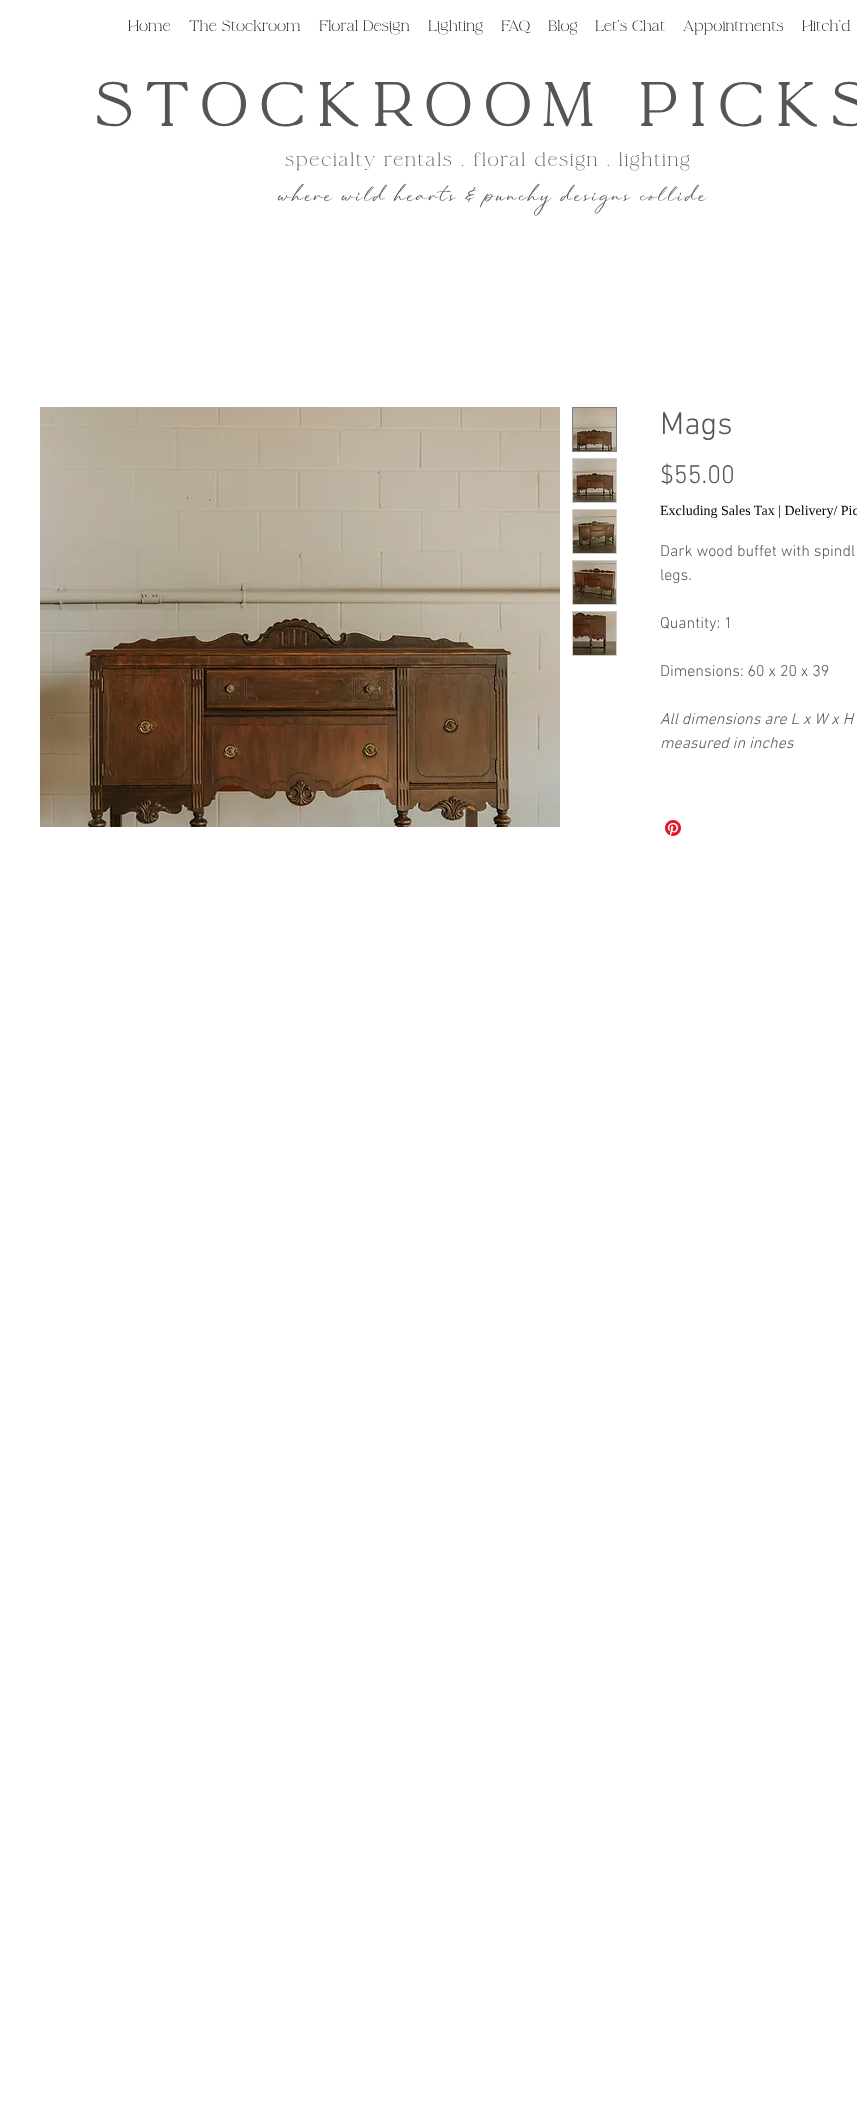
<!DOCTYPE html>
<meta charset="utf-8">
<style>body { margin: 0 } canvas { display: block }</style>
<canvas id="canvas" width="857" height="2122"></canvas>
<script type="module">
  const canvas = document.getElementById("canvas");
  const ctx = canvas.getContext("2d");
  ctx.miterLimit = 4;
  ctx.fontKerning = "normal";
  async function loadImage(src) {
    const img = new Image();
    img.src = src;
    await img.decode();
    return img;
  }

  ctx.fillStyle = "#ffffff";
  ctx.fillRect(0, 0, 857, 2122);
  ctx.font = "13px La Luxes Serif";
  ctx.fillStyle = "#000000";
  ctx.fillText("Home", 128, 31);
  ctx.fillText("The Stockroom", 189, 31);
  ctx.fillText("Floral Design", 319, 31);
  ctx.fillText("Lighting", 428, 31);
  ctx.fillText("FAQ", 501, 31);
  ctx.fillText("Blog", 548, 31);
  ctx.fillText("Let's Chat", 595, 31);
  ctx.fillText("Appointments", 683, 31);
  ctx.fillText("Hitch'd", 802, 31);
  ctx.letterSpacing = "13.25px";
  ctx.font = "bold 53px La Luxes Serif";
  ctx.fillStyle = "#555555";
  ctx.fillText("STOCKROOM PICKS", 95, 126);
  ctx.letterSpacing = "1.6px";
  ctx.font = "16px La Luxes Serif";
  ctx.fillText("specialty rentals . floral design . lighting", 285, 166);
  ctx.wordSpacing = "1.5px";
  ctx.font = "16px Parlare";
  ctx.fillText("where wild hearts & punchy designs collide", 278, 201);
  ctx.drawImage(await loadImage("img1.png"), 40, 407, 520, 420);
  ctx.strokeStyle = "#808080";
  ctx.strokeRect(572.5, 407.5, 44, 44);
  ctx.drawImage(await loadImage("img2.png"), 573, 408, 43, 43);
  ctx.strokeStyle = "#cccccc";
  ctx.strokeRect(572.5, 458.5, 44, 44);
  ctx.drawImage(await loadImage("img3.png"), 573, 459, 43, 43);
  ctx.strokeRect(572.5, 509.5, 44, 44);
  ctx.drawImage(await loadImage("img4.png"), 573, 510, 43, 43);
  ctx.strokeRect(572.5, 560.5, 44, 44);
  ctx.drawImage(await loadImage("img5.png"), 573, 561, 43, 43);
  ctx.strokeRect(572.5, 611.5, 44, 44);
  ctx.drawImage(await loadImage("img6.png"), 573, 612, 43, 43);
  ctx.letterSpacing = "0px";
  ctx.wordSpacing = "0px";
  ctx.font = "300 32px 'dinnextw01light'";
  ctx.fillText("Mags", 660, 434);
  ctx.font = "300 26px 'dinnextw01light'";
  ctx.fillText("$55.00", 660, 483);
  ctx.font = "14px Liberation Serif";
  ctx.fillStyle = "#000000";
  ctx.fillText("Excluding Sales Tax | Delivery/ Pic", 660, 515);
  ctx.font = "300 16px 'dinnextw01light'";
  ctx.fillStyle = "#555555";
  ctx.fillText("Dark wood buffet with spindl", 660, 556);
  ctx.fillText("legs.", 660, 580);
  ctx.fillText("Quantity: 1", 660, 628);
  ctx.fillText("Dimensions: 60 x 20 x 39", 660, 676);
  ctx.font = "italic 300 16px 'dinnextw01light'";
  ctx.fillText("All dimensions are L x W x H", 660, 724);
  ctx.fillText("measured in inches", 660, 748);
  ctx.drawImage(await loadImage("img7.png"), 665, 820, 16, 16);
</script>
